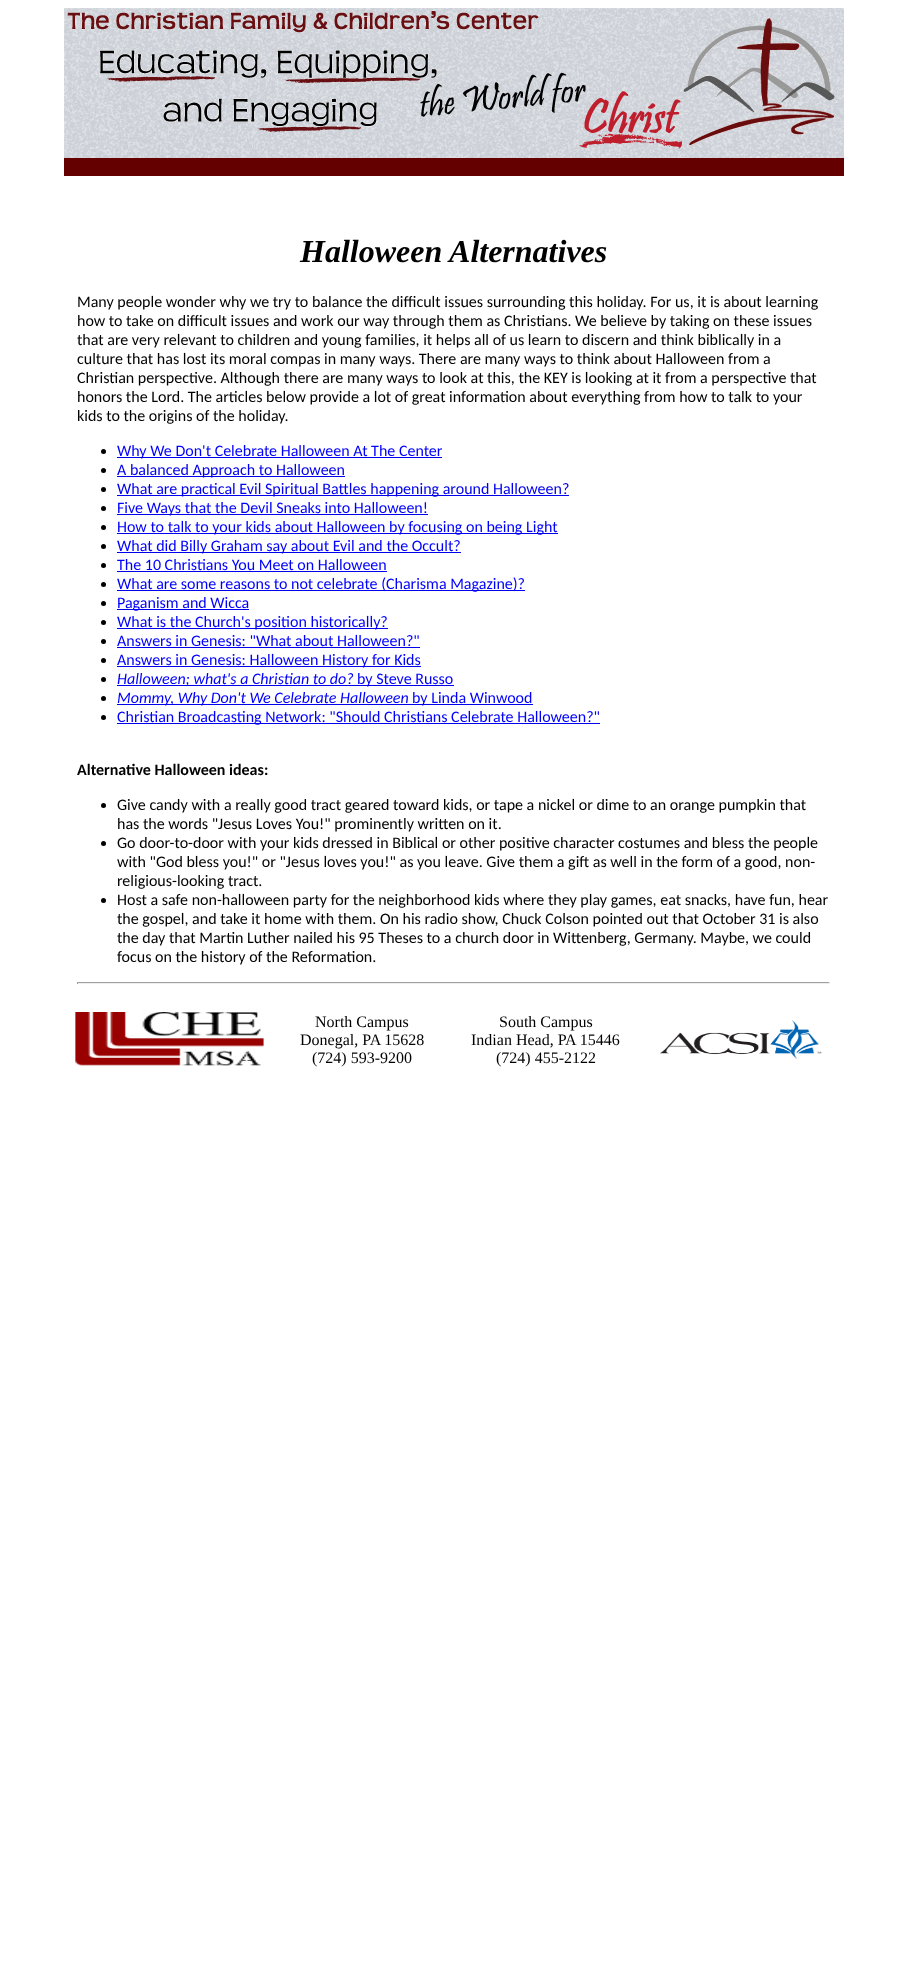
<!DOCTYPE html>
<meta charset="utf-8">
<style>body { margin: 0 } canvas { display: block }</style>
<canvas id="canvas" width="907" height="1973"></canvas>
<script type="module">
  const canvas = document.getElementById("canvas");
  const ctx = canvas.getContext("2d");
  ctx.miterLimit = 4;
  ctx.fontKerning = "normal";
  async function loadImage(src) {
    const img = new Image();
    img.src = src;
    await img.decode();
    return img;
  }

  ctx.fillStyle = "#ffffff";
  ctx.fillRect(0, 0, 907, 1973);
  ctx.drawImage(await loadImage("img1.png"), 64, 8, 780, 150);
  ctx.fillStyle = "#640000";
  ctx.fillRect(64, 158, 780, 18);
  ctx.font = "italic bold 32px Liberation Serif";
  ctx.fillStyle = "#000000";
  ctx.fillText("Halloween Alternatives", 300, 262);
  ctx.font = "16px Carlito";
  ctx.fillText("Many people wonder why we try to balance the difficult issues surrounding this holiday. For us, it is about learning", 77, 307);
  ctx.fillText("how to take on difficult issues and work our way through them as Christians. We believe by taking on these issues", 77, 326);
  ctx.fillText("that are very relevant to children and young families, it helps all of us learn to discern and think biblically in a", 77, 345);
  ctx.fillText("culture that has lost its moral compas in many ways. There are many ways to think about Halloween from a", 77, 364);
  ctx.fillText("Christian perspective. Although there are many ways to look at this, the KEY is looking at it from a perspective that", 77, 383);
  ctx.fillText("honors the Lord. The articles below provide a lot of great information about everything from how to talk to your", 77, 402);
  ctx.fillText("kids to the origins of the holiday.", 77, 421);
  ctx.beginPath();
  ctx.arc(103.5, 451.5, 2.5, 0, Math.PI * 2);
  ctx.fill();
  ctx.fillStyle = "#0000ee";
  ctx.fillRect(117, 457, 325, 1);
  ctx.fillStyle = "#0000ff";
  ctx.fillText("Why We Don't Celebrate Halloween At The Center", 117, 456);
  ctx.fillStyle = "#000000";
  ctx.beginPath();
  ctx.arc(103.5, 470.5, 2.5, 0, Math.PI * 2);
  ctx.fill();
  ctx.fillStyle = "#0000ee";
  ctx.fillRect(117, 476, 228, 1);
  ctx.fillText("A balanced Approach to Halloween", 117, 475);
  ctx.fillStyle = "#000000";
  ctx.beginPath();
  ctx.arc(103.5, 489.5, 2.5, 0, Math.PI * 2);
  ctx.fill();
  ctx.fillStyle = "#0000ee";
  ctx.fillRect(117, 495, 452, 1);
  ctx.fillText("What are practical Evil Spiritual Battles happening around Halloween?", 117, 494);
  ctx.fillStyle = "#000000";
  ctx.beginPath();
  ctx.arc(103.5, 508.5, 2.5, 0, Math.PI * 2);
  ctx.fill();
  ctx.fillStyle = "#0000ee";
  ctx.fillRect(117, 514, 311, 1);
  ctx.fillStyle = "#0000ff";
  ctx.fillText("Five Ways that the Devil Sneaks into Halloween!", 117, 513);
  ctx.fillStyle = "#000000";
  ctx.beginPath();
  ctx.arc(103.5, 527.5, 2.5, 0, Math.PI * 2);
  ctx.fill();
  ctx.fillStyle = "#0000ee";
  ctx.fillRect(117, 533, 441, 1);
  ctx.fillStyle = "#0000ff";
  ctx.fillText("How to talk to your kids about Halloween by focusing on being Light", 117, 532);
  ctx.fillStyle = "#000000";
  ctx.beginPath();
  ctx.arc(103.5, 546.5, 2.5, 0, Math.PI * 2);
  ctx.fill();
  ctx.fillStyle = "#0000ee";
  ctx.fillRect(117, 552, 344, 1);
  ctx.fillStyle = "#0000ff";
  ctx.fillText("What did Billy Graham say about Evil and the Occult?", 117, 551);
  ctx.fillStyle = "#000000";
  ctx.beginPath();
  ctx.arc(103.5, 565.5, 2.5, 0, Math.PI * 2);
  ctx.fill();
  ctx.fillStyle = "#0000ff";
  ctx.fillText("The 10 Christians You Meet on Halloween", 117, 570);
  ctx.fillStyle = "#0000ee";
  ctx.fillRect(117, 571, 270, 1);
  ctx.fillStyle = "#000000";
  ctx.beginPath();
  ctx.arc(103.5, 584.5, 2.5, 0, Math.PI * 2);
  ctx.fill();
  ctx.fillStyle = "#0000ee";
  ctx.fillRect(117, 590, 408, 1);
  ctx.fillStyle = "#0000ff";
  ctx.fillText("What are some reasons to not celebrate (Charisma Magazine)?", 117, 589);
  ctx.fillStyle = "#000000";
  ctx.beginPath();
  ctx.arc(103.5, 603.5, 2.5, 0, Math.PI * 2);
  ctx.fill();
  ctx.fillStyle = "#0000ee";
  ctx.fillRect(117, 609, 132, 1);
  ctx.fillStyle = "#0000ff";
  ctx.fillText("Paganism and Wicca", 117, 608);
  ctx.fillStyle = "#000000";
  ctx.beginPath();
  ctx.arc(103.5, 622.5, 2.5, 0, Math.PI * 2);
  ctx.fill();
  ctx.fillStyle = "#0000ee";
  ctx.fillRect(117, 628, 271, 1);
  ctx.fillStyle = "#0000ff";
  ctx.fillText("What is the Church's position historically?", 117, 627);
  ctx.fillStyle = "#000000";
  ctx.beginPath();
  ctx.arc(103.5, 641.5, 2.5, 0, Math.PI * 2);
  ctx.fill();
  ctx.fillStyle = "#0000ff";
  ctx.fillText("Answers in Genesis: \"What about Halloween?\"", 117, 646);
  ctx.fillStyle = "#0000ee";
  ctx.fillRect(117, 647, 303, 1);
  ctx.fillStyle = "#000000";
  ctx.beginPath();
  ctx.arc(103.5, 660.5, 2.5, 0, Math.PI * 2);
  ctx.fill();
  ctx.fillStyle = "#0000ee";
  ctx.fillRect(117, 666, 304, 1);
  ctx.fillStyle = "#0000ff";
  ctx.fillText("Answers in Genesis: Halloween History for Kids", 117, 665);
  ctx.fillStyle = "#000000";
  ctx.beginPath();
  ctx.arc(103.5, 679.5, 2.5, 0, Math.PI * 2);
  ctx.fill();
  ctx.fillStyle = "#0000ee";
  ctx.fillRect(117, 685, 337, 1);
  ctx.font = "italic 16px Carlito";
  ctx.fillStyle = "#0000ff";
  ctx.fillText("Halloween; what's a Christian to do?", 117, 684);
  ctx.font = "16px Carlito";
  ctx.fillText("by Steve Russo", 357, 684);
  ctx.fillStyle = "#000000";
  ctx.beginPath();
  ctx.arc(103.5, 698.5, 2.5, 0, Math.PI * 2);
  ctx.fill();
  ctx.fillStyle = "#0000ee";
  ctx.fillRect(117, 704, 416, 1);
  ctx.font = "italic 16px Carlito";
  ctx.fillStyle = "#0000ff";
  ctx.fillText("Mommy, Why Don't We Celebrate Halloween", 117, 703);
  ctx.font = "16px Carlito";
  ctx.fillText("by Linda Winwood", 412, 703);
  ctx.fillStyle = "#000000";
  ctx.beginPath();
  ctx.arc(103.5, 717.5, 2.5, 0, Math.PI * 2);
  ctx.fill();
  ctx.fillStyle = "#0000ee";
  ctx.fillRect(117, 723, 483, 1);
  ctx.fillStyle = "#0000ff";
  ctx.fillText("Christian Broadcasting Network: \"Should Christians Celebrate Halloween?\"", 117, 722);
  ctx.font = "bold 16px Carlito";
  ctx.fillStyle = "#000000";
  ctx.fillText("Alternative Halloween ideas:", 77, 775);
  ctx.beginPath();
  ctx.arc(103.5, 805.5, 2.5, 0, Math.PI * 2);
  ctx.fill();
  ctx.font = "16px Carlito";
  ctx.fillText("Give candy with a really good tract geared toward kids, or tape a nickel or dime to an orange pumpkin that", 117, 810);
  ctx.fillText("has the words \"Jesus Loves You!\" prominently written on it.", 117, 829);
  ctx.beginPath();
  ctx.arc(103.5, 843.5, 2.5, 0, Math.PI * 2);
  ctx.fill();
  ctx.fillText("Go door-to-door with your kids dressed in Biblical or other positive character costumes and bless the people", 117, 848);
  ctx.fillText("with \"God bless you!\" or \"Jesus loves you!\" as you leave. Give them a gift as well in the form of a good, non-", 117, 867);
  ctx.fillText("religious-looking tract.", 117, 886);
  ctx.beginPath();
  ctx.arc(103.5, 900.5, 2.5, 0, Math.PI * 2);
  ctx.fill();
  ctx.fillText("Host a safe non-halloween party for the neighborhood kids where they play games, eat snacks, have fun, hear", 117, 905);
  ctx.fillText("the gospel, and take it home with them. On his radio show, Chuck Colson pointed out that October 31 is also", 117, 924);
  ctx.fillText("the day that Martin Luther nailed his 95 Theses to a church door in Wittenberg, Germany. Maybe, we could", 117, 943);
  ctx.fillText("focus on the history of the Reformation.", 117, 962);
  ctx.fillStyle = "#9f9f9f";
  ctx.fillRect(77, 982, 753, 1);
  ctx.fillStyle = "#eeeeee";
  ctx.fillRect(829, 982, 1, 2);
  ctx.fillRect(77, 983, 753, 1);
  ctx.fillStyle = "#9f9f9f";
  ctx.fillRect(77, 982, 1, 2);
  ctx.drawImage(await loadImage("img2.png"), 75, 1011, 189, 55);
  ctx.font = "16px Liberation Serif";
  ctx.fillStyle = "#000000";
  ctx.fillText("North Campus", 315, 1027);
  ctx.fillText("Donegal, PA 15628", 300, 1045);
  ctx.fillText("(724) 593-9200", 312, 1063);
  ctx.fillText("South Campus", 499, 1027);
  ctx.fillText("Indian Head, PA 15446", 471, 1045);
  ctx.fillText("(724) 455-2122", 496, 1063);
  ctx.drawImage(await loadImage("img3.png"), 660, 1020, 162, 40);
</script>
